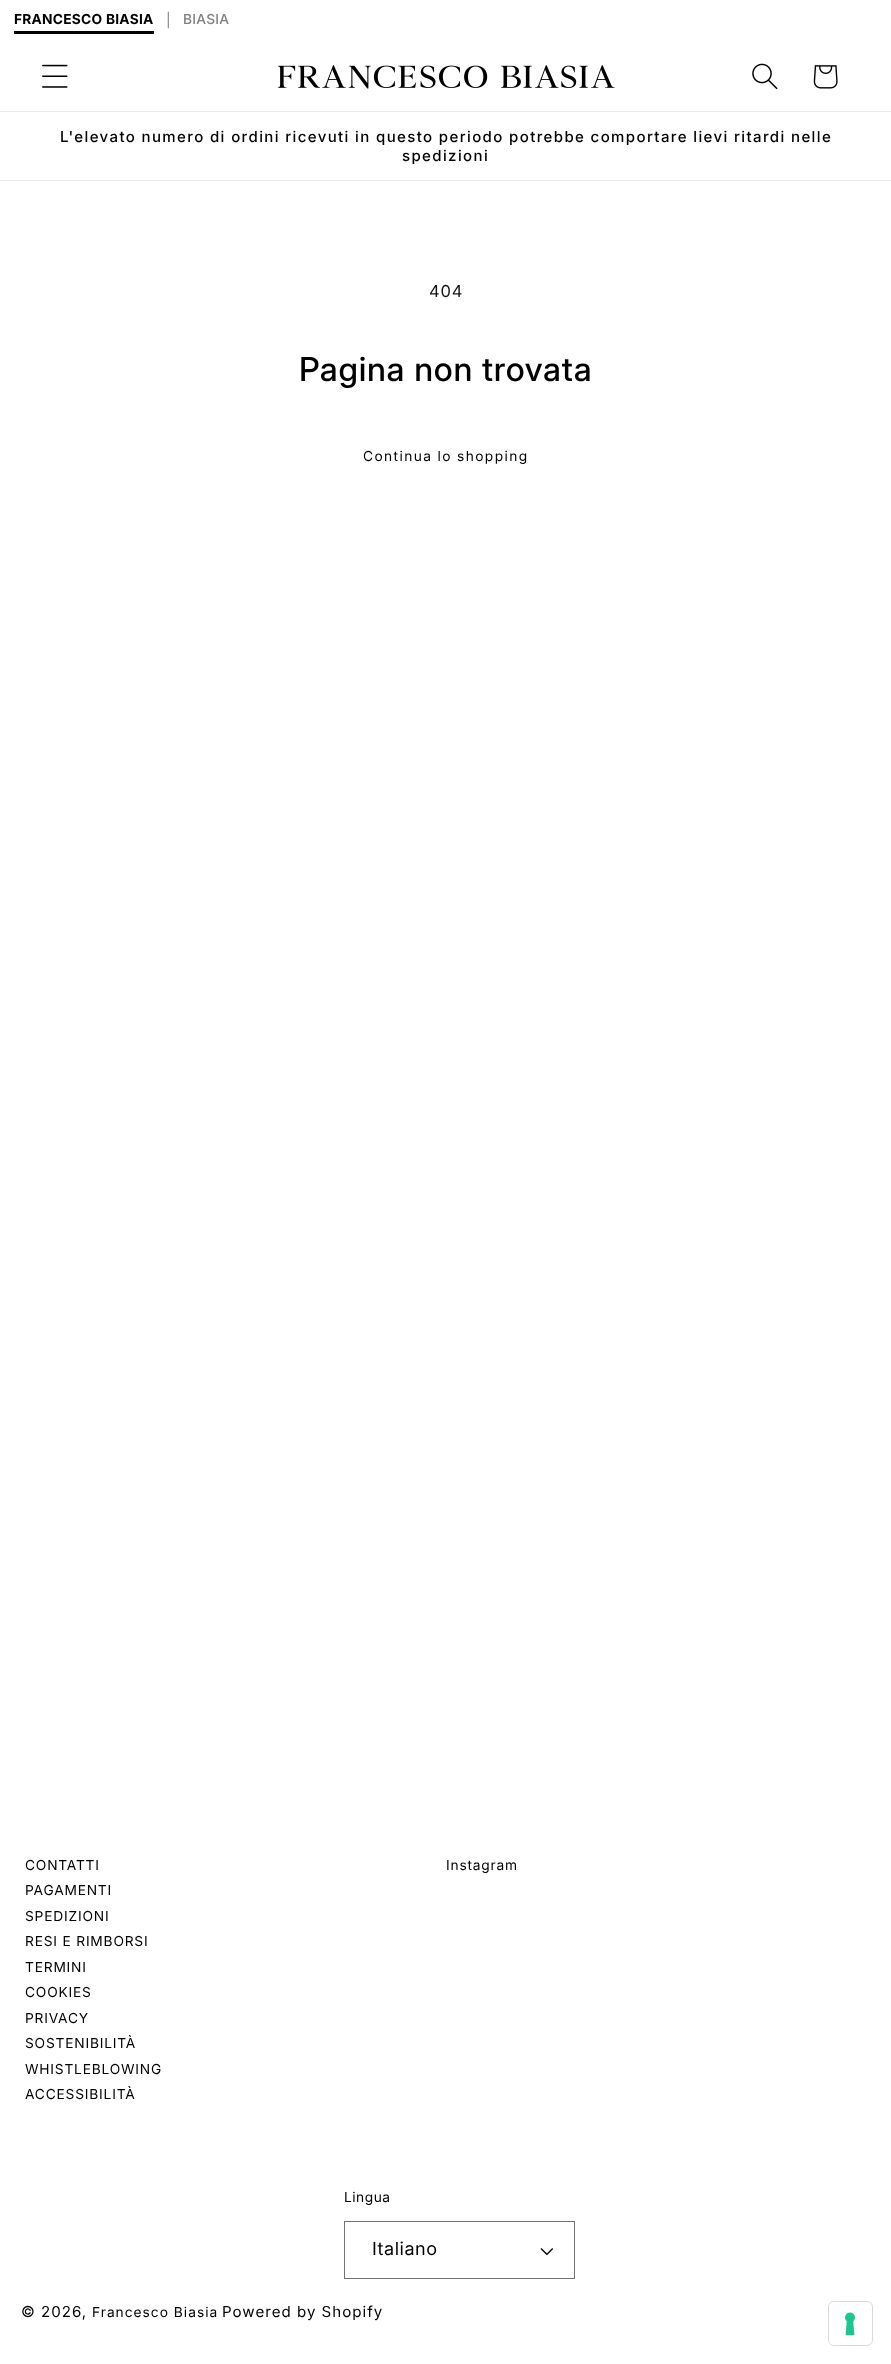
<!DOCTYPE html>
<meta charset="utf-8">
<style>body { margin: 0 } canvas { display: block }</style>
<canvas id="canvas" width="891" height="2364"></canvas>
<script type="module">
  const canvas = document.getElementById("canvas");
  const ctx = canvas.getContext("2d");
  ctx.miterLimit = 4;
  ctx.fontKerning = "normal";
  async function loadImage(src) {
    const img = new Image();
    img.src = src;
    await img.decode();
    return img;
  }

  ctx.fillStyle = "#ffffff";
  ctx.fillRect(0, 0, 891, 2364);
  ctx.fillStyle = "#000000";
  ctx.fillRect(14, 31, 140, 3);
  ctx.letterSpacing = "0.25px";
  ctx.font = "bold 13.75px Inter";
  ctx.fillText("FRANCESCO BIASIA", 14, 24);
  ctx.font = "13.75px Inter";
  ctx.fillStyle = "#808080";
  ctx.fillText("|", 166, 25);
  ctx.font = "500 13.75px Inter";
  ctx.fillText("BIASIA", 183, 24);
  ctx.fillStyle = "#ebebeb";
  ctx.fillRect(0, 111, 891, 1);
  ctx.drawImage(await loadImage("img1.png"), 42, 64, 26, 24);
  ctx.drawImage(await loadImage("img2.png"), 278, 65, 337, 24);
  ctx.drawImage(await loadImage("img3.png"), 752, 63, 26, 27);
  ctx.drawImage(await loadImage("img4.png"), 813, 65, 25, 24);
  ctx.fillRect(0, 180, 891, 1);
  ctx.letterSpacing = "1.38px";
  ctx.font = "500 15px Inter";
  ctx.fillStyle = "#000000";
  ctx.fillText("L'elevato numero di ordini ricevuti in questo periodo potrebbe comportare lievi ritardi nelle", 60, 142);
  ctx.fillText("spedizioni", 402, 161);
  ctx.letterSpacing = "0.8px";
  ctx.font = "16.5px Inter";
  ctx.fillStyle = "#121212";
  ctx.fillText("404", 429, 297);
  ctx.letterSpacing = "0.75px";
  ctx.font = "500 33px 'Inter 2'";
  ctx.fillStyle = "#000000";
  ctx.fillText("Pagina non trovata", 299, 381);
  ctx.letterSpacing = "1.38px";
  ctx.font = "13.75px Inter";
  ctx.fillText("Continua lo shopping", 363, 461);
  ctx.letterSpacing = "0.8px";
  ctx.fillText("CONTATTI", 25, 1870);
  ctx.fillText("PAGAMENTI", 25, 1895);
  ctx.fillText("SPEDIZIONI", 25, 1921);
  ctx.fillText("RESI E RIMBORSI", 25, 1946);
  ctx.fillText("TERMINI", 25, 1972);
  ctx.fillText("COOKIES", 25, 1997);
  ctx.fillText("PRIVACY", 25, 2023);
  ctx.fillText("SOSTENIBILITÀ", 25, 2048);
  ctx.fillText("WHISTLEBLOWING", 25, 2074);
  ctx.fillText("ACCESSIBILITÀ", 25, 2099);
  ctx.fillText("Instagram", 446, 1870);
  ctx.letterSpacing = "0.5px";
  ctx.fillText("Lingua", 344, 2202);
  ctx.drawImage(await loadImage("img5.png"), 540, 2248, 13, 7);
  ctx.strokeStyle = "#737373";
  ctx.strokeRect(344.5, 2221.5, 230, 57);
  ctx.font = "18px Inter";
  ctx.fillText("Italiano", 372, 2255);
  ctx.letterSpacing = "1px";
  ctx.font = "15.1px Inter";
  ctx.fillText("© 2026,", 21, 2317);
  ctx.font = "13.75px Inter";
  ctx.fillText("Francesco Biasia", 92, 2317);
  ctx.font = "15.1px Inter";
  ctx.fillText("Powered by Shopify", 222, 2317);
  ctx.beginPath();
  ctx.roundRect(828.5, 2301.5, 44, 44, 5.5);
  ctx.strokeStyle = "#d9d9d9";
  ctx.stroke();
  ctx.fillStyle = "#ffffff";
  ctx.beginPath();
  ctx.roundRect(829, 2303, 42, 42, 5);
  ctx.fill();
  ctx.drawImage(await loadImage("img6.png"), 845, 2312, 10, 23);
</script>
